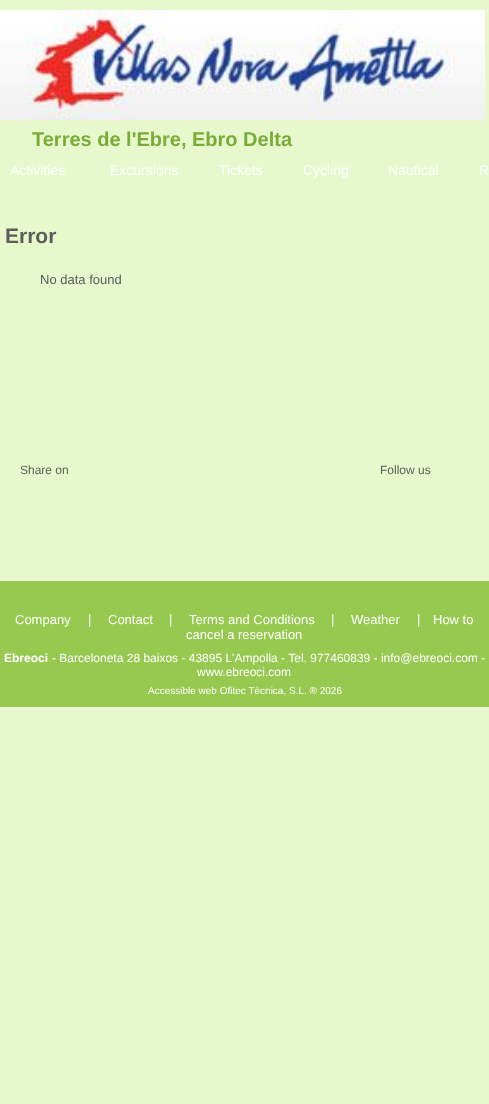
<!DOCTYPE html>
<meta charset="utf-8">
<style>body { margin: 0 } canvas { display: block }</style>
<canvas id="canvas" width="489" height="1104"></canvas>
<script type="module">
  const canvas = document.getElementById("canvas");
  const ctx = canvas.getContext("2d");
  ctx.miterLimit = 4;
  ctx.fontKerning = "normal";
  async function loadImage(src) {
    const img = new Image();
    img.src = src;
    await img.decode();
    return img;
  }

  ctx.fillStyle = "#e7f9cc";
  ctx.fillRect(0, 0, 489, 1104);
  ctx.drawImage(await loadImage("img1.png"), 0, 10, 485, 110);
  ctx.font = "bold 20px Liberation Sans";
  ctx.fillStyle = "#79ac36";
  ctx.fillText("Terres de l'Ebre, Ebro Delta", 32, 146);
  ctx.font = "14px Liberation Sans";
  ctx.fillStyle = "#ffffff";
  ctx.fillText("Activities", 10, 175);
  ctx.fillText("Excursions", 110, 175);
  ctx.fillText("Tickets", 219, 175);
  ctx.fillText("Cycling", 303, 175);
  ctx.fillText("Nautical", 388, 175);
  ctx.fillText("R", 479, 175);
  ctx.font = "bold 21px Liberation Sans";
  ctx.fillStyle = "#5c5c5c";
  ctx.fillText("Error", 5, 243);
  ctx.font = "13px Liberation Sans";
  ctx.fillText("No data found", 40, 284);
  ctx.font = "12px Liberation Sans";
  ctx.fillText("Share on", 20, 474);
  ctx.fillText("Follow us", 380, 474);
  ctx.fillStyle = "#97c950";
  ctx.fillRect(0, 581, 489, 126);
  ctx.font = "13px Liberation Sans";
  ctx.fillStyle = "#ffffff";
  ctx.fillText("Company", 15, 624);
  ctx.fillText("|", 88, 624);
  ctx.fillText("Contact", 108, 624);
  ctx.fillText("|", 169, 624);
  ctx.fillText("Terms and Conditions", 189, 624);
  ctx.fillText("|", 331, 624);
  ctx.fillText("Weather", 351, 624);
  ctx.fillText("|", 417, 624);
  ctx.fillText("How to", 433, 624);
  ctx.fillText("cancel a reservation", 186, 639);
  ctx.font = "bold 12px Liberation Sans";
  ctx.fillText("Ebreoci", 4, 662);
  ctx.font = "12px Liberation Sans";
  ctx.fillText("- Barceloneta 28 baixos - 43895 L'Ampolla - Tel. 977460839 - info@ebreoci.com -", 52, 662);
  ctx.fillText("www.ebreoci.com", 197, 676);
  ctx.font = "10px Liberation Sans";
  ctx.fillText("Accessible web Ofitec Tècnica, S.L. ® 2026", 148, 694);
</script>
